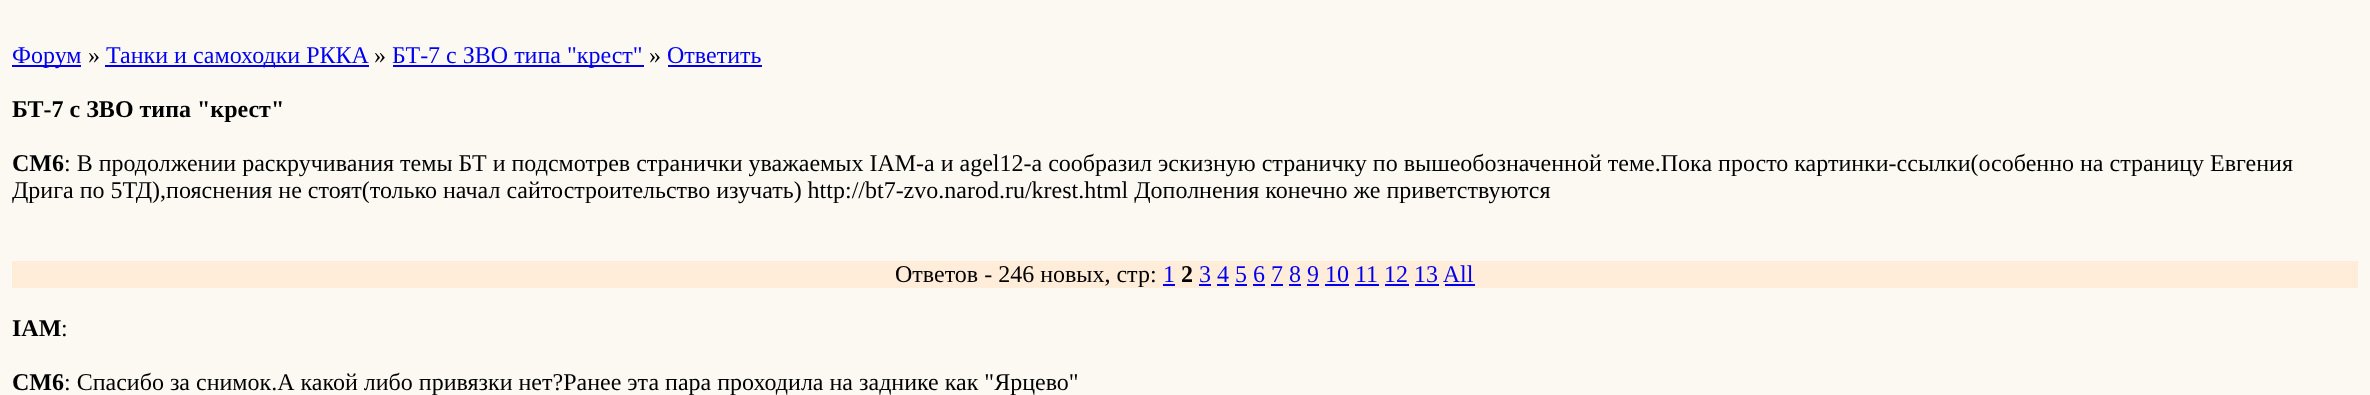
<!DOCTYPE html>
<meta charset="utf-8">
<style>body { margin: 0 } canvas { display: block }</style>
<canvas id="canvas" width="2370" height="395"></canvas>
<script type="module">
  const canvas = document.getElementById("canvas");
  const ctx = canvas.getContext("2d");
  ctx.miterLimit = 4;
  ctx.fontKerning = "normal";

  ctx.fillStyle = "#fcf9f3";
  ctx.fillRect(0, 0, 2370, 395);
  ctx.fillStyle = "#0000ee";
  ctx.fillRect(12, 65, 69, 2);
  ctx.font = "24px Liberation Serif";
  ctx.fillText("Форум", 12, 63);
  ctx.fillStyle = "#000000";
  ctx.fillText("»", 88, 63);
  ctx.fillStyle = "#0000ee";
  ctx.fillRect(105, 65, 264, 2);
  ctx.fillText("Танки и самоходки РККА", 106, 63);
  ctx.fillStyle = "#000000";
  ctx.fillText("»", 374, 63);
  ctx.fillStyle = "#0000ee";
  ctx.fillRect(393, 65, 251, 2);
  ctx.fillText("БТ-7 с ЗВО типа \"крест\"", 392, 63);
  ctx.fillStyle = "#000000";
  ctx.fillText("»", 649, 63);
  ctx.fillStyle = "#0000ee";
  ctx.fillText("Ответить", 667, 63);
  ctx.fillRect(668, 65, 94, 2);
  ctx.font = "bold 24px Liberation Serif";
  ctx.fillStyle = "#000000";
  ctx.fillText("БТ-7 с ЗВО типа \"крест\"", 12, 117);
  ctx.fillText("CM6", 12, 171);
  ctx.font = "24px Liberation Serif";
  ctx.fillText(": В продолжении раскручивания темы БТ и подсмотрев странички уважаемых IAM-a и agel12-a сообразил эскизную страничку по вышеобозначенной теме.Пока просто картинки-ссылки(особенно на страницу Евгения", 64, 171);
  ctx.fillText("Дрига по 5ТД),пояснения не стоят(только начал сайтостроительство изучать) http://bt7-zvo.narod.ru/krest.html Дополнения конечно же приветствуются", 12, 198);
  ctx.fillStyle = "#ffecd9";
  ctx.fillRect(12, 261, 2346, 27);
  ctx.fillStyle = "#000000";
  ctx.fillText("Ответов - 246 новых, стр:", 895, 282);
  ctx.fillStyle = "#0000ee";
  ctx.fillText("1", 1163, 282);
  ctx.fillRect(1163, 284, 12, 2);
  ctx.font = "bold 24px Liberation Serif";
  ctx.fillStyle = "#000000";
  ctx.fillText("2", 1181, 282);
  ctx.font = "24px Liberation Serif";
  ctx.fillStyle = "#0000ee";
  ctx.fillText("3 4 5 6 7 8 9 10 11 12 13 All", 1199, 282);
  ctx.fillRect(1199, 284, 12, 2);
  ctx.fillRect(1217, 284, 12, 2);
  ctx.fillRect(1235, 284, 12, 2);
  ctx.fillRect(1253, 284, 12, 2);
  ctx.fillRect(1271, 284, 12, 2);
  ctx.fillRect(1289, 284, 12, 2);
  ctx.fillRect(1307, 284, 12, 2);
  ctx.fillRect(1325, 284, 24, 2);
  ctx.fillRect(1355, 284, 24, 2);
  ctx.fillRect(1385, 284, 24, 2);
  ctx.fillRect(1415, 284, 24, 2);
  ctx.fillRect(1445, 284, 30, 2);
  ctx.font = "bold 24px Liberation Serif";
  ctx.fillStyle = "#000000";
  ctx.fillText("IAM", 12, 336);
  ctx.font = "24px Liberation Serif";
  ctx.fillText(":", 61, 336);
  ctx.font = "bold 24px Liberation Serif";
  ctx.fillText("CM6", 12, 390);
  ctx.font = "24px Liberation Serif";
  ctx.fillText(": Спасибо за снимок.А какой либо привязки нет?Ранее эта пара проходила на заднике как \"Ярцево\"", 64, 390);
</script>
